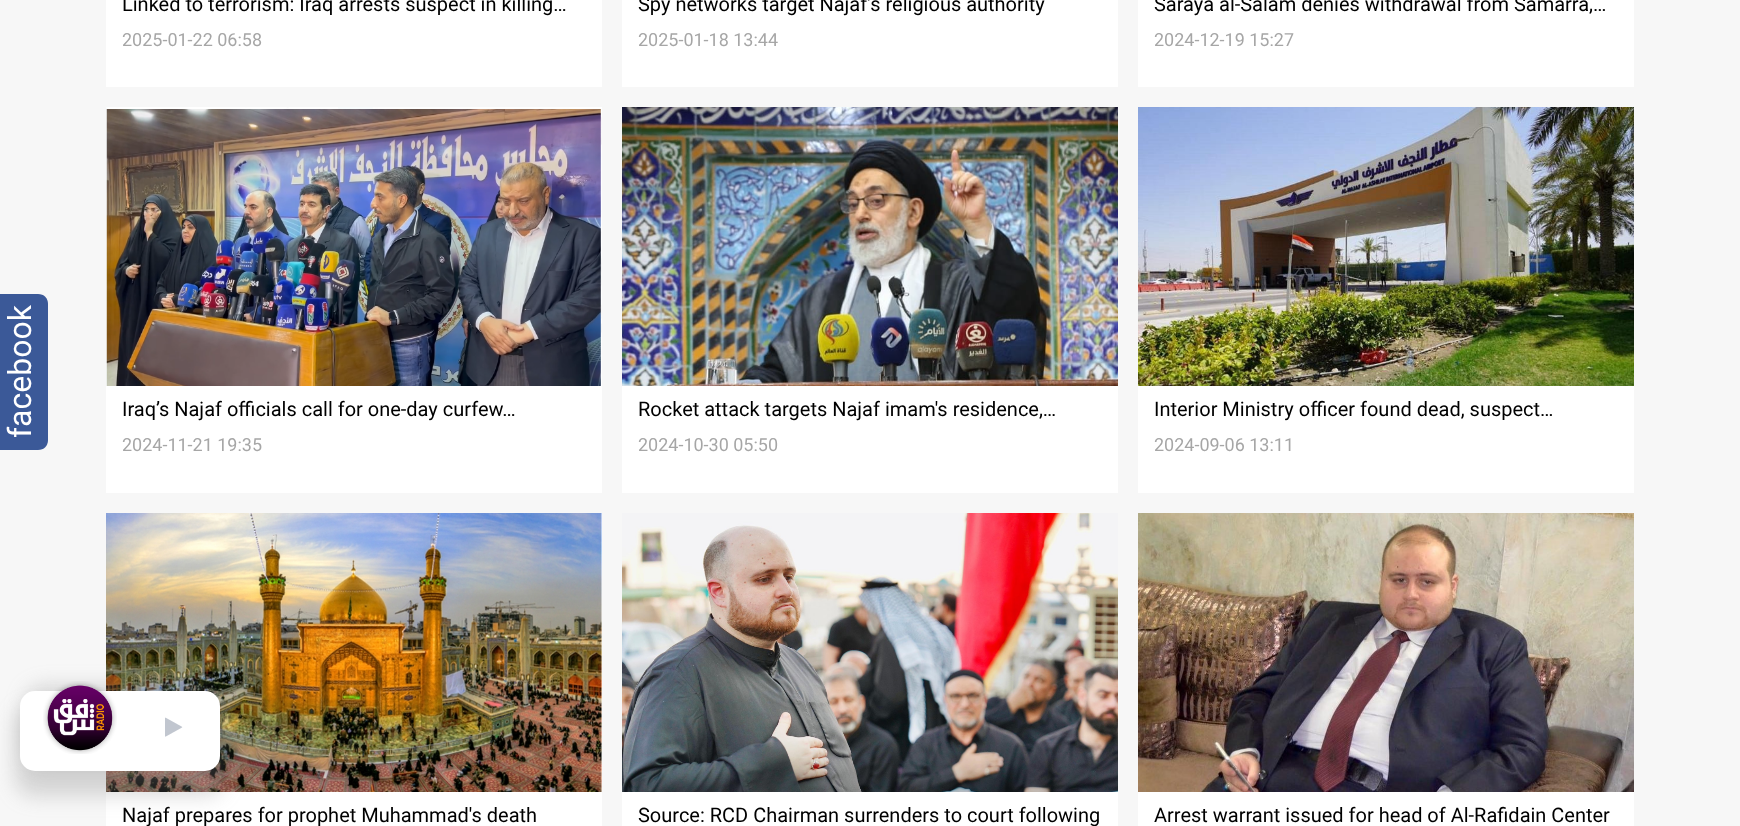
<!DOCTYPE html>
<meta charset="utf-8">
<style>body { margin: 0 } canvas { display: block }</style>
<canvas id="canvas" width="1740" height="826"></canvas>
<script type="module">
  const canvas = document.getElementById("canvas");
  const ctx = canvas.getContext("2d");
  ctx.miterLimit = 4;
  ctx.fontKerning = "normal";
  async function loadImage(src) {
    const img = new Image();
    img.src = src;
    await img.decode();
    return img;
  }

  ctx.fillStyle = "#f7f7f7";
  ctx.fillRect(0, 0, 1740, 826);
  ctx.fillStyle = "#3b5998";
  ctx.beginPath();
  ctx.moveTo(-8, 450);
  ctx.lineTo(-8, 294);
  ctx.lineTo(38, 294);
  ctx.bezierCurveTo(44, 294, 48, 298, 48, 304);
  ctx.lineTo(48, 440);
  ctx.bezierCurveTo(48, 446, 44, 450, 38, 450);
  ctx.closePath();
  ctx.fill();
  ctx.font = "32px Roboto";
  ctx.fillStyle = "#ffffff";
  ctx.save();
  ctx.translate(31, 438);
  ctx.rotate(-90 * Math.PI / 180);
  ctx.fillText("facebook", 0, 0);
  ctx.restore();
  ctx.fillRect(106, 0, 496, 87);
  ctx.font = "20px Roboto";
  ctx.fillStyle = "#000000";
  ctx.fillText("Linked to terrorism: Iraq arrests suspect in killing…", 122, 11);
  ctx.font = "18px Roboto";
  ctx.fillStyle = "#a6a6a6";
  ctx.fillText("2025-01-22 06:58", 122, 46);
  ctx.fillStyle = "#ffffff";
  ctx.fillRect(622, 0, 496, 87);
  ctx.font = "20px Roboto";
  ctx.fillStyle = "#000000";
  ctx.fillText("Spy networks target Najaf’s religious authority", 638, 11);
  ctx.font = "18px Roboto";
  ctx.fillStyle = "#a6a6a6";
  ctx.fillText("2025-01-18 13:44", 638, 46);
  ctx.fillStyle = "#ffffff";
  ctx.fillRect(1138, 0, 496, 87);
  ctx.font = "20px Roboto";
  ctx.fillStyle = "#000000";
  ctx.fillText("Saraya al-Salam denies withdrawal from Samarra,…", 1154, 11);
  ctx.font = "18px Roboto";
  ctx.fillStyle = "#a6a6a6";
  ctx.fillText("2024-12-19 15:27", 1154, 46);
  ctx.drawImage(await loadImage("img1.png"), 106, 107, 496, 279);
  ctx.fillStyle = "#ffffff";
  ctx.fillRect(106, 386, 496, 107);
  ctx.font = "20px Roboto";
  ctx.fillStyle = "#000000";
  ctx.fillText("Iraq’s Najaf officials call for one-day curfew…", 122, 416);
  ctx.font = "18px Roboto";
  ctx.fillStyle = "#a6a6a6";
  ctx.fillText("2024-11-21 19:35", 122, 451);
  ctx.drawImage(await loadImage("img2.png"), 622, 107, 496, 279);
  ctx.fillStyle = "#ffffff";
  ctx.fillRect(622, 386, 496, 107);
  ctx.font = "20px Roboto";
  ctx.fillStyle = "#000000";
  ctx.fillText("Rocket attack targets Najaf imam's residence,…", 638, 416);
  ctx.font = "18px Roboto";
  ctx.fillStyle = "#a6a6a6";
  ctx.fillText("2024-10-30 05:50", 638, 451);
  ctx.drawImage(await loadImage("img3.png"), 1138, 107, 496, 279);
  ctx.fillStyle = "#ffffff";
  ctx.fillRect(1138, 386, 496, 107);
  ctx.font = "20px Roboto";
  ctx.fillStyle = "#000000";
  ctx.fillText("Interior Ministry officer found dead, suspect…", 1154, 416);
  ctx.font = "18px Roboto";
  ctx.fillStyle = "#a6a6a6";
  ctx.fillText("2024-09-06 13:11", 1154, 451);
  ctx.drawImage(await loadImage("img4.png"), 106, 513, 496, 279);
  ctx.fillStyle = "#ffffff";
  ctx.fillRect(106, 792, 496, 34);
  ctx.font = "20px Roboto";
  ctx.fillStyle = "#000000";
  ctx.fillText("Najaf prepares for prophet Muhammad's death", 122, 822);
  ctx.drawImage(await loadImage("img5.png"), 622, 513, 496, 279);
  ctx.fillStyle = "#ffffff";
  ctx.fillRect(622, 792, 496, 34);
  ctx.fillStyle = "#000000";
  ctx.fillText("Source: RCD Chairman surrenders to court following", 638, 822);
  ctx.drawImage(await loadImage("img6.png"), 1138, 513, 496, 279);
  ctx.fillStyle = "#ffffff";
  ctx.fillRect(1138, 792, 496, 34);
  ctx.fillStyle = "#000000";
  ctx.fillText("Arrest warrant issued for head of Al-Rafidain Center", 1154, 822);
  ctx.fillStyle = "rgba(132, 132, 132, 0.3)";
  ctx.filter = "blur(10px)";
  ctx.beginPath();
  ctx.roundRect(25, 686, 190, 80, 20);
  ctx.fill();
  ctx.filter = "none";
  ctx.filter = "blur(10px)";
  ctx.beginPath();
  ctx.roundRect(15, 706, 210, 90, 20);
  ctx.fill();
  ctx.filter = "none";
  ctx.fillStyle = "#ffffff";
  ctx.beginPath();
  ctx.roundRect(20, 691, 200, 80, 15);
  ctx.fill();
  ctx.drawImage(await loadImage("img7.png"), 43, 681, 74, 73);
  ctx.drawImage(await loadImage("img8.png"), 165, 717, 18, 20);
</script>
